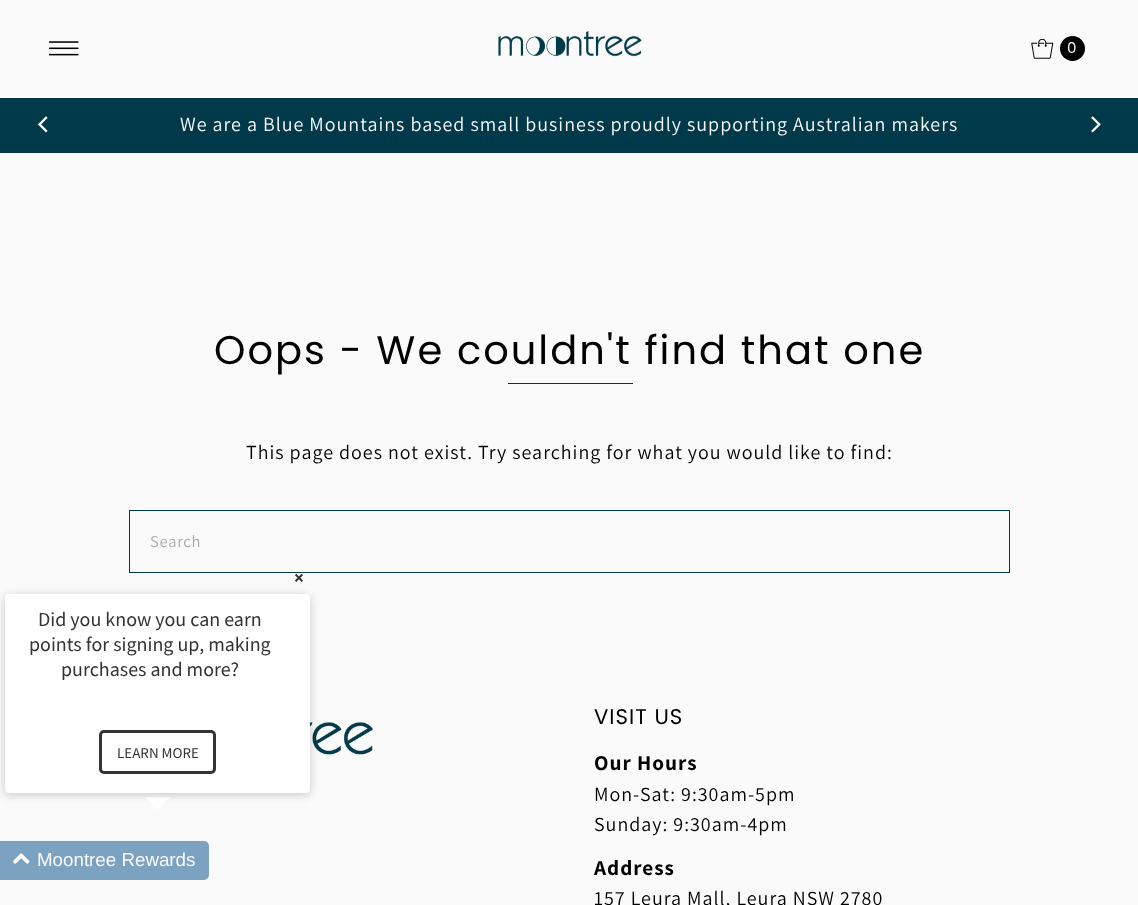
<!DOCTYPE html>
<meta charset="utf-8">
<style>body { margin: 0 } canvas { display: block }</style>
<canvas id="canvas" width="1138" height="905"></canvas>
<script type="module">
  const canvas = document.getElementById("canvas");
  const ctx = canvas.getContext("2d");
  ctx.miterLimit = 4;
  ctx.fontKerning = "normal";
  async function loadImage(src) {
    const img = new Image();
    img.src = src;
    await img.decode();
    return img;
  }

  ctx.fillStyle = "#fafafa";
  ctx.fillRect(0, 0, 1138, 905);
  ctx.drawImage(await loadImage("img1.png"), 49, 41, 30, 15);
  ctx.drawImage(await loadImage("img2.png"), 498, 31, 144, 26);
  ctx.drawImage(await loadImage("img3.png"), 1031, 39, 23, 20);
  ctx.fillStyle = "#000000";
  ctx.beginPath();
  ctx.arc(1072.5, 48.5, 12.5, 0, Math.PI * 2);
  ctx.fill();
  ctx.font = "15px Poppins";
  ctx.fillStyle = "#fafafa";
  ctx.fillText("0", 1067, 53);
  ctx.fillStyle = "#00394a";
  ctx.fillRect(0, 98, 1138, 55);
  ctx.drawImage(await loadImage("img4.png"), 38, 116, 10, 17);
  ctx.letterSpacing = "1px";
  ctx.font = "20px Assistant";
  ctx.fillStyle = "#fafafa";
  ctx.fillText("We are a Blue Mountains based small business proudly supporting Australian makers", 180, 131);
  ctx.drawImage(await loadImage("img5.png"), 1091, 116, 10, 17);
  ctx.letterSpacing = "2px";
  ctx.font = "40px Poppins";
  ctx.fillStyle = "#000000";
  ctx.fillText("Oops - We couldn't find that one", 214, 364);
  ctx.fillStyle = "#00394a";
  ctx.fillRect(508, 383, 125, 1);
  ctx.letterSpacing = "1px";
  ctx.font = "20px Assistant";
  ctx.fillStyle = "#000000";
  ctx.fillText("This page does not exist. Try searching for what you would like to find:", 246, 459);
  ctx.strokeStyle = "#00394a";
  ctx.strokeRect(129.5, 510.5, 880, 62);
  ctx.letterSpacing = "0.75px";
  ctx.font = "16.5px Assistant";
  ctx.fillStyle = "#aaaaaa";
  ctx.fillText("Search", 150, 547);
  ctx.drawImage(await loadImage("img6.png"), 310, 722, 63, 33);
  ctx.letterSpacing = "1px";
  ctx.font = "21.25px Poppins";
  ctx.fillStyle = "#000000";
  ctx.fillText("VISIT US", 594, 724);
  ctx.font = "bold 21.25px Assistant";
  ctx.fillText("Our Hours", 594, 770);
  ctx.font = "20px Assistant";
  ctx.fillText("Mon-Sat: 9:30am-5pm", 594, 801);
  ctx.fillText("Sunday: 9:30am-4pm", 594, 831);
  ctx.font = "bold 21.25px Assistant";
  ctx.fillText("Address", 594, 875);
  ctx.font = "20px Assistant";
  ctx.fillText("157 Leura Mall, Leura NSW 2780", 594, 905);
  ctx.letterSpacing = "0px";
  ctx.font = "bold 18.75px Source Sans Pro";
  ctx.fillStyle = "#333333";
  ctx.fillText("×", 294, 584);
  ctx.fillStyle = "rgba(0, 0, 0, 0.2)";
  ctx.filter = "blur(5px)";
  ctx.beginPath();
  ctx.roundRect(5, 596, 305, 199, 4);
  ctx.fill();
  ctx.filter = "none";
  ctx.fillStyle = "#ffffff";
  ctx.beginPath();
  ctx.roundRect(5, 594, 305, 199, 4);
  ctx.fill();
  ctx.font = "20px Source Sans Pro";
  ctx.fillStyle = "#333333";
  ctx.fillText("Did you know you can earn", 38, 626);
  ctx.fillText("points for signing up, making", 29, 651);
  ctx.fillText("purchases and more?", 61, 676);
  ctx.beginPath();
  ctx.roundRect(100.5, 731.5, 114, 41, 3.5);
  ctx.strokeStyle = "#333333";
  ctx.lineWidth = 3;
  ctx.stroke();
  ctx.font = "15px Source Sans Pro";
  ctx.fillText("LEARN MORE", 117, 758);
  ctx.fillStyle = "#ffffff";
  ctx.beginPath();
  ctx.moveTo(145, 797.5);
  ctx.lineTo(170, 797.5);
  ctx.lineTo(157.5, 810);
  ctx.closePath();
  ctx.fill();
  ctx.fillStyle = "#7ca2c2";
  ctx.beginPath();
  ctx.roundRect(0, 841, 209, 39, [0, 5, 5, 0]);
  ctx.fill();
  ctx.drawImage(await loadImage("img7.png"), 13, 853, 17, 11);
  ctx.font = "18.75px Liberation Sans";
  ctx.fillStyle = "#fafafa";
  ctx.fillText("Moontree Rewards", 37, 866);
</script>
